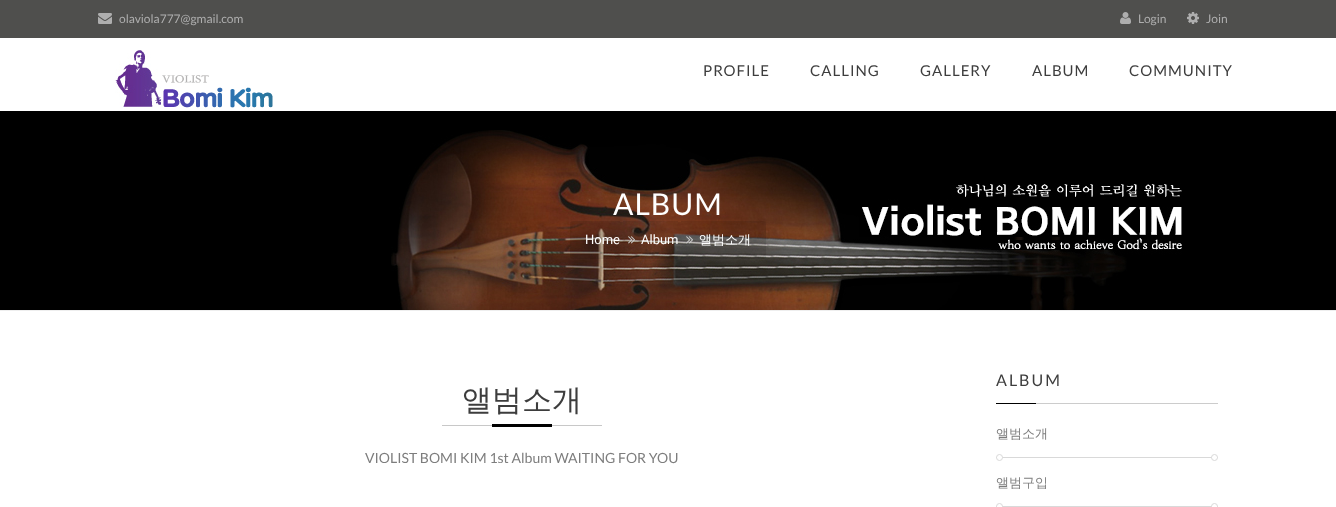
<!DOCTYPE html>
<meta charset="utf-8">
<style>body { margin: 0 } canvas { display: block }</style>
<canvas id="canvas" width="1336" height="507"></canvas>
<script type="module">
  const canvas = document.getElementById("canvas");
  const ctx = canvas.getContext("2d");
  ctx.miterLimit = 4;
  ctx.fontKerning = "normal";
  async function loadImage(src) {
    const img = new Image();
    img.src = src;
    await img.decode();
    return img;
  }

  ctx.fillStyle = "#ffffff";
  ctx.fillRect(0, 0, 1336, 507);
  ctx.fillStyle = "#4f4f4d";
  ctx.fillRect(0, 0, 1336, 38);
  ctx.drawImage(await loadImage("img1.png"), 98, 13, 14, 11);
  ctx.font = "12px Lato";
  ctx.fillStyle = "#aeaeae";
  ctx.fillText("olaviola777@gmail.com", 119, 23);
  ctx.drawImage(await loadImage("img2.png"), 1120, 12, 11, 12);
  ctx.fillText("Login", 1138, 23);
  ctx.drawImage(await loadImage("img3.png"), 1187, 12, 12, 12);
  ctx.fillText("Join", 1206, 23);
  ctx.drawImage(await loadImage("img4.png"), 115, 50, 158, 58);
  ctx.letterSpacing = "1px";
  ctx.font = "15px Lato";
  ctx.fillStyle = "#3d3d3d";
  ctx.fillText("PROFILE", 703, 76);
  ctx.fillText("CALLING", 810, 76);
  ctx.fillText("GALLERY", 920, 76);
  ctx.fillText("ALBUM", 1032, 76);
  ctx.fillText("COMMUNITY", 1129, 76);
  ctx.fillStyle = "#000000";
  ctx.fillRect(0, 111, 1336, 199);
  ctx.drawImage(await loadImage("img5.png"), 391, 130, 791, 180);
  ctx.fillStyle = "#eeeeee";
  ctx.fillRect(0, 310, 1336, 1);
  ctx.font = "30px Lato";
  ctx.fillStyle = "#ffffff";
  ctx.fillText("ALBUM", 613, 215);
  ctx.fillStyle = "rgba(0, 0, 0, 0.1)";
  ctx.beginPath();
  ctx.roundRect(570, 221, 50, 38, [3, 0, 0, 3]);
  ctx.fill();
  ctx.fillRect(620, 222, 3, 35);
  ctx.fillRect(623, 221, 55, 38);
  ctx.fillRect(678, 222, 3, 35);
  ctx.beginPath();
  ctx.roundRect(681, 221, 85, 38, [0, 3, 3, 0]);
  ctx.fill();
  ctx.letterSpacing = "0px";
  ctx.font = "13px Roboto";
  ctx.fillStyle = "#ffffff";
  ctx.fillText("Home", 585, 244);
  ctx.drawImage(await loadImage("img6.png"), 628, 236, 8, 8);
  ctx.fillText("Album", 641, 244);
  ctx.drawImage(await loadImage("img7.png"), 686, 236, 7, 8);
  ctx.font = "500 13px WenQuanYi Zen Hei";
  ctx.fillText("앨범소개", 699, 244);
  ctx.font = "500 30px WenQuanYi Zen Hei";
  ctx.fillStyle = "#3d3d3d";
  ctx.fillText("앨범소개", 462, 410);
  ctx.fillStyle = "#c8c8c8";
  ctx.fillRect(442, 425, 160, 1);
  ctx.fillStyle = "#000000";
  ctx.fillRect(492, 424, 60, 3);
  ctx.font = "14px Lato";
  ctx.fillStyle = "#7d7d7d";
  ctx.fillText("VIOLIST BOMI KIM 1st Album WAITING FOR YOU", 365, 463);
  ctx.letterSpacing = "2px";
  ctx.font = "16px Lato";
  ctx.fillStyle = "#3d3d3d";
  ctx.fillText("ALBUM", 996, 386);
  ctx.fillStyle = "#000000";
  ctx.fillRect(996, 403, 40, 1);
  ctx.fillStyle = "#cccccc";
  ctx.fillRect(1036, 403, 182, 1);
  ctx.fillStyle = "#d9d9d9";
  ctx.fillRect(996, 457, 222, 1);
  ctx.letterSpacing = "0px";
  ctx.font = "500 13px WenQuanYi Zen Hei";
  ctx.fillStyle = "#7d7d7d";
  ctx.fillText("앨범소개", 996, 438);
  ctx.fillStyle = "#ffffff";
  ctx.beginPath();
  ctx.arc(999.5, 457.5, 3, 0, Math.PI * 2);
  ctx.fill();
  ctx.strokeStyle = "#d9d9d9";
  ctx.stroke();
  ctx.beginPath();
  ctx.arc(1214.5, 457.5, 3, 0, Math.PI * 2);
  ctx.fill();
  ctx.stroke();
  ctx.fillStyle = "#d9d9d9";
  ctx.fillRect(996, 506, 222, 1);
  ctx.fillStyle = "#7d7d7d";
  ctx.fillText("앨범구입", 996, 487);
  ctx.fillStyle = "#ffffff";
  ctx.beginPath();
  ctx.arc(999.5, 506.5, 3, 0, Math.PI * 2);
  ctx.fill();
  ctx.stroke();
  ctx.beginPath();
  ctx.arc(1214.5, 506.5, 3, 0, Math.PI * 2);
  ctx.fill();
  ctx.stroke();
</script>
